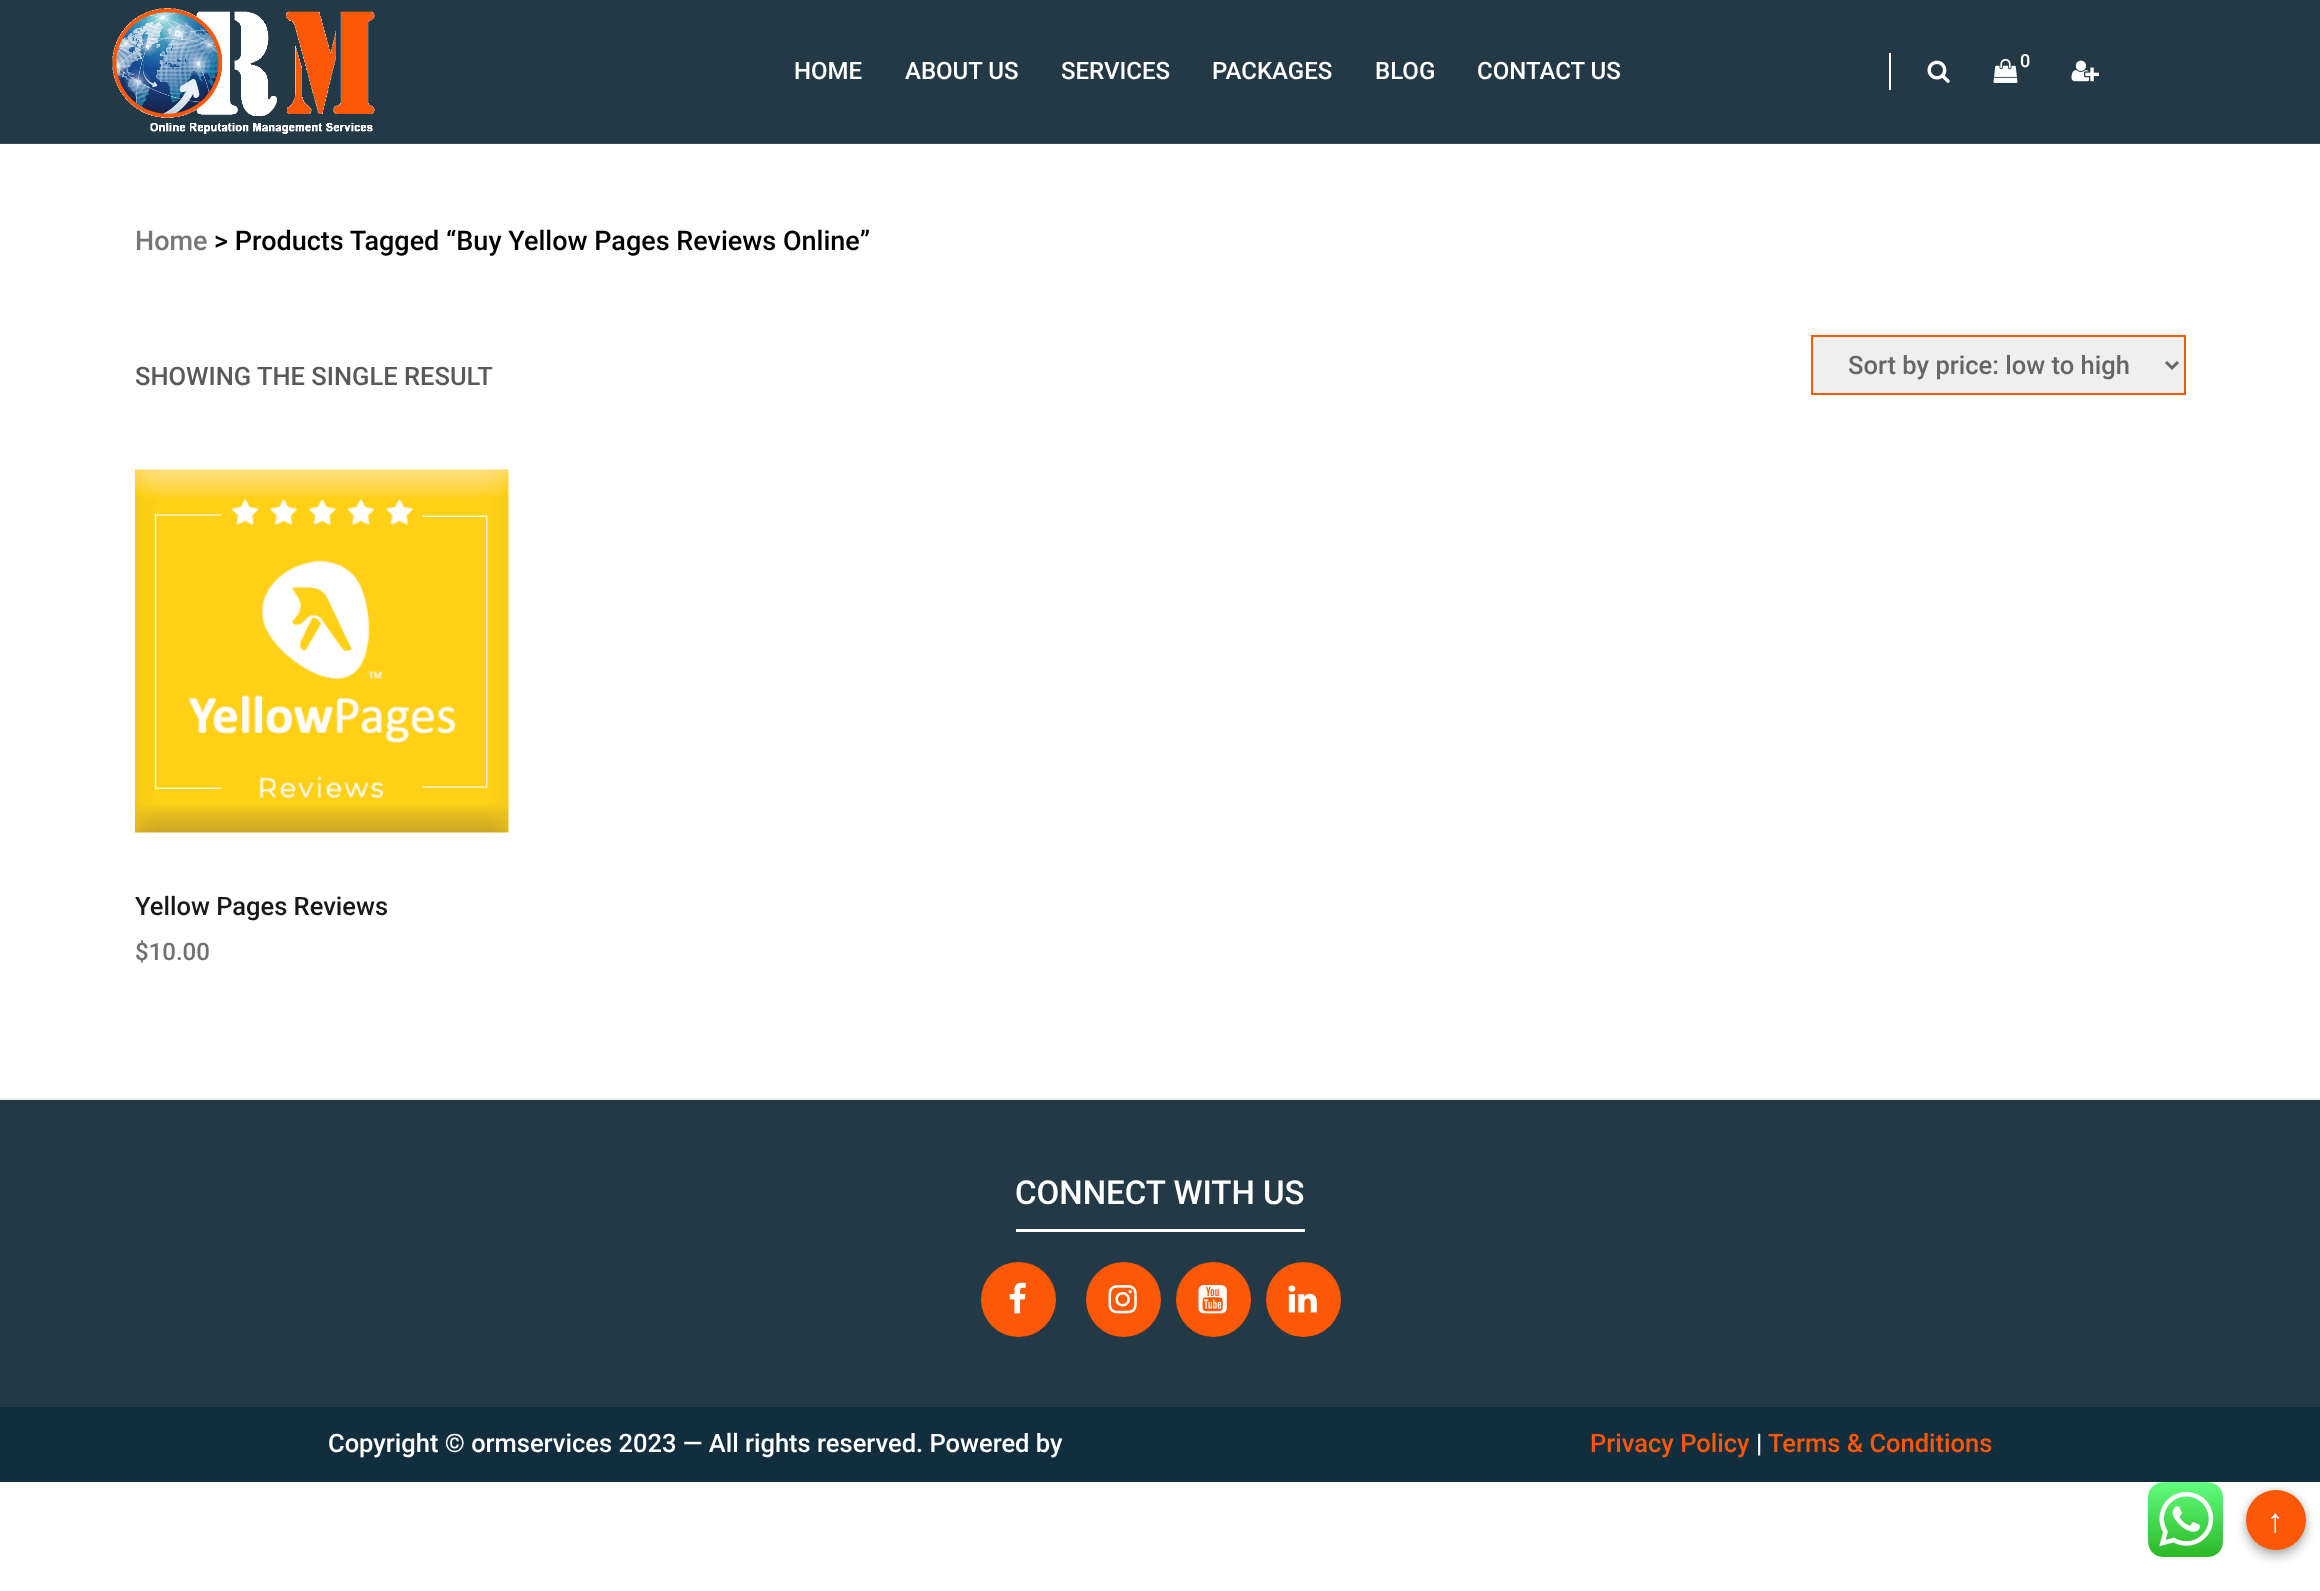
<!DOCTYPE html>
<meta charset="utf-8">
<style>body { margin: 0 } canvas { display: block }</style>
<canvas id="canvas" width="2320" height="1591"></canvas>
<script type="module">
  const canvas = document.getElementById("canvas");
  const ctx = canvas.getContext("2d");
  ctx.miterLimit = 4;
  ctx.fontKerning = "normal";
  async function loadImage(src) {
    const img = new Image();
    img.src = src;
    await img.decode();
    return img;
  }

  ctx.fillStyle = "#ffffff";
  ctx.fillRect(0, 0, 2320, 1591);
  ctx.fillStyle = "#233946";
  ctx.fillRect(0, 0, 2320, 143);
  ctx.fillStyle = "#394d59";
  ctx.fillRect(0, 143, 2320, 1);
  ctx.drawImage(await loadImage("img1.png"), 112, 8, 263, 126);
  ctx.font = "500 24px Roboto";
  ctx.fillStyle = "#ffffff";
  ctx.fillText("HOME", 794, 79);
  ctx.fillText("ABOUT US", 905, 79);
  ctx.fillText("SERVICES", 1061, 79);
  ctx.fillText("PACKAGES", 1212, 79);
  ctx.fillText("BLOG", 1375, 79);
  ctx.fillText("CONTACT US", 1477, 79);
  ctx.fillRect(1889, 53, 2, 37);
  ctx.drawImage(await loadImage("img2.png"), 1927, 60, 23, 23);
  ctx.drawImage(await loadImage("img3.png"), 1993, 58, 25, 25);
  ctx.font = "500 18px Roboto";
  ctx.fillText("0", 2020, 67);
  ctx.drawImage(await loadImage("img4.png"), 2071, 60, 28, 22);
  ctx.font = "500 27px Roboto";
  ctx.fillStyle = "#767676";
  ctx.fillText("Home", 135, 250);
  ctx.fillStyle = "#000000";
  ctx.fillText("> Products Tagged “Buy Yellow Pages Reviews Online”", 214, 250);
  ctx.font = "500 25.5px Roboto";
  ctx.fillStyle = "#595959";
  ctx.fillText("SHOWING THE SINGLE RESULT", 135, 385);
  ctx.fillStyle = "#efefef";
  ctx.beginPath();
  ctx.rect(1812, 336, 373, 58);
  ctx.fill();
  ctx.strokeStyle = "#fd5806";
  ctx.lineWidth = 2;
  ctx.stroke();
  ctx.beginPath();
  ctx.moveTo(2166, 362);
  ctx.lineTo(2172, 368);
  ctx.lineTo(2178, 362);
  ctx.strokeStyle = "#666666";
  ctx.lineWidth = 3;
  ctx.stroke();
  ctx.fillStyle = "#666666";
  ctx.fillText("Sort by price: low to high", 1848, 374);
  ctx.drawImage(await loadImage("img5.png"), 135, 469, 374, 364);
  ctx.fillStyle = "#191919";
  ctx.fillText("Yellow Pages Reviews", 135, 915);
  ctx.font = "500 24px Roboto";
  ctx.fillStyle = "#707070";
  ctx.fillText("$10.00", 135, 960);
  ctx.fillStyle = "#233946";
  ctx.fillRect(0, 1100, 2320, 307);
  ctx.fillStyle = "#ebebeb";
  ctx.fillRect(0, 1098, 2320, 2);
  ctx.fillStyle = "#ffffff";
  ctx.fillRect(1016, 1229, 289, 3);
  ctx.font = "500 33px Roboto";
  ctx.fillText("CONNECT WITH US", 1015, 1204);
  ctx.fillStyle = "#fd5806";
  ctx.beginPath();
  ctx.arc(1018.5, 1299.5, 37.5, 0, Math.PI * 2);
  ctx.fill();
  ctx.drawImage(await loadImage("img6.png"), 1009, 1282, 17, 32);
  ctx.beginPath();
  ctx.arc(1123.5, 1299.5, 37.5, 0, Math.PI * 2);
  ctx.fill();
  ctx.drawImage(await loadImage("img7.png"), 1108, 1285, 29, 29);
  ctx.beginPath();
  ctx.arc(1213.5, 1299.5, 37.5, 0, Math.PI * 2);
  ctx.fill();
  ctx.drawImage(await loadImage("img8.png"), 1198, 1285, 29, 29);
  ctx.beginPath();
  ctx.arc(1303.5, 1299.5, 37.5, 0, Math.PI * 2);
  ctx.fill();
  ctx.drawImage(await loadImage("img9.png"), 1288, 1285, 29, 28);
  ctx.fillStyle = "#122e3e";
  ctx.fillRect(0, 1407, 2320, 75);
  ctx.font = "500 25.5px Roboto";
  ctx.fillStyle = "#ffffff";
  ctx.fillText("Copyright © ormservices 2023 — All rights reserved. Powered by", 328, 1452);
  ctx.fillStyle = "#fd5806";
  ctx.fillText("Privacy Policy", 1590, 1452);
  ctx.fillStyle = "#ffffff";
  ctx.fillText("|", 1756, 1452);
  ctx.fillStyle = "#fd5806";
  ctx.fillText("Terms & Conditions", 1768, 1452);
  ctx.fillStyle = "rgba(0, 0, 0, 0.28)";
  ctx.filter = "blur(6px)";
  ctx.beginPath();
  ctx.roundRect(2246, 1496, 60, 60, 30);
  ctx.fill();
  ctx.filter = "none";
  ctx.fillStyle = "rgba(0, 0, 0, 0.14)";
  ctx.filter = "blur(3px)";
  ctx.beginPath();
  ctx.roundRect(2246, 1490, 60, 60, 30);
  ctx.fill();
  ctx.filter = "none";
  ctx.fillStyle = "#fd5806";
  ctx.beginPath();
  ctx.arc(2276, 1520, 30, 0, Math.PI * 2);
  ctx.fill();
  ctx.font = "italic 33px Liberation Serif";
  ctx.fillStyle = "#ffffff";
  ctx.fillText("↑", 2267, 1532);
  ctx.drawImage(await loadImage("img10.png"), 2148, 1482, 75, 75);
</script>
